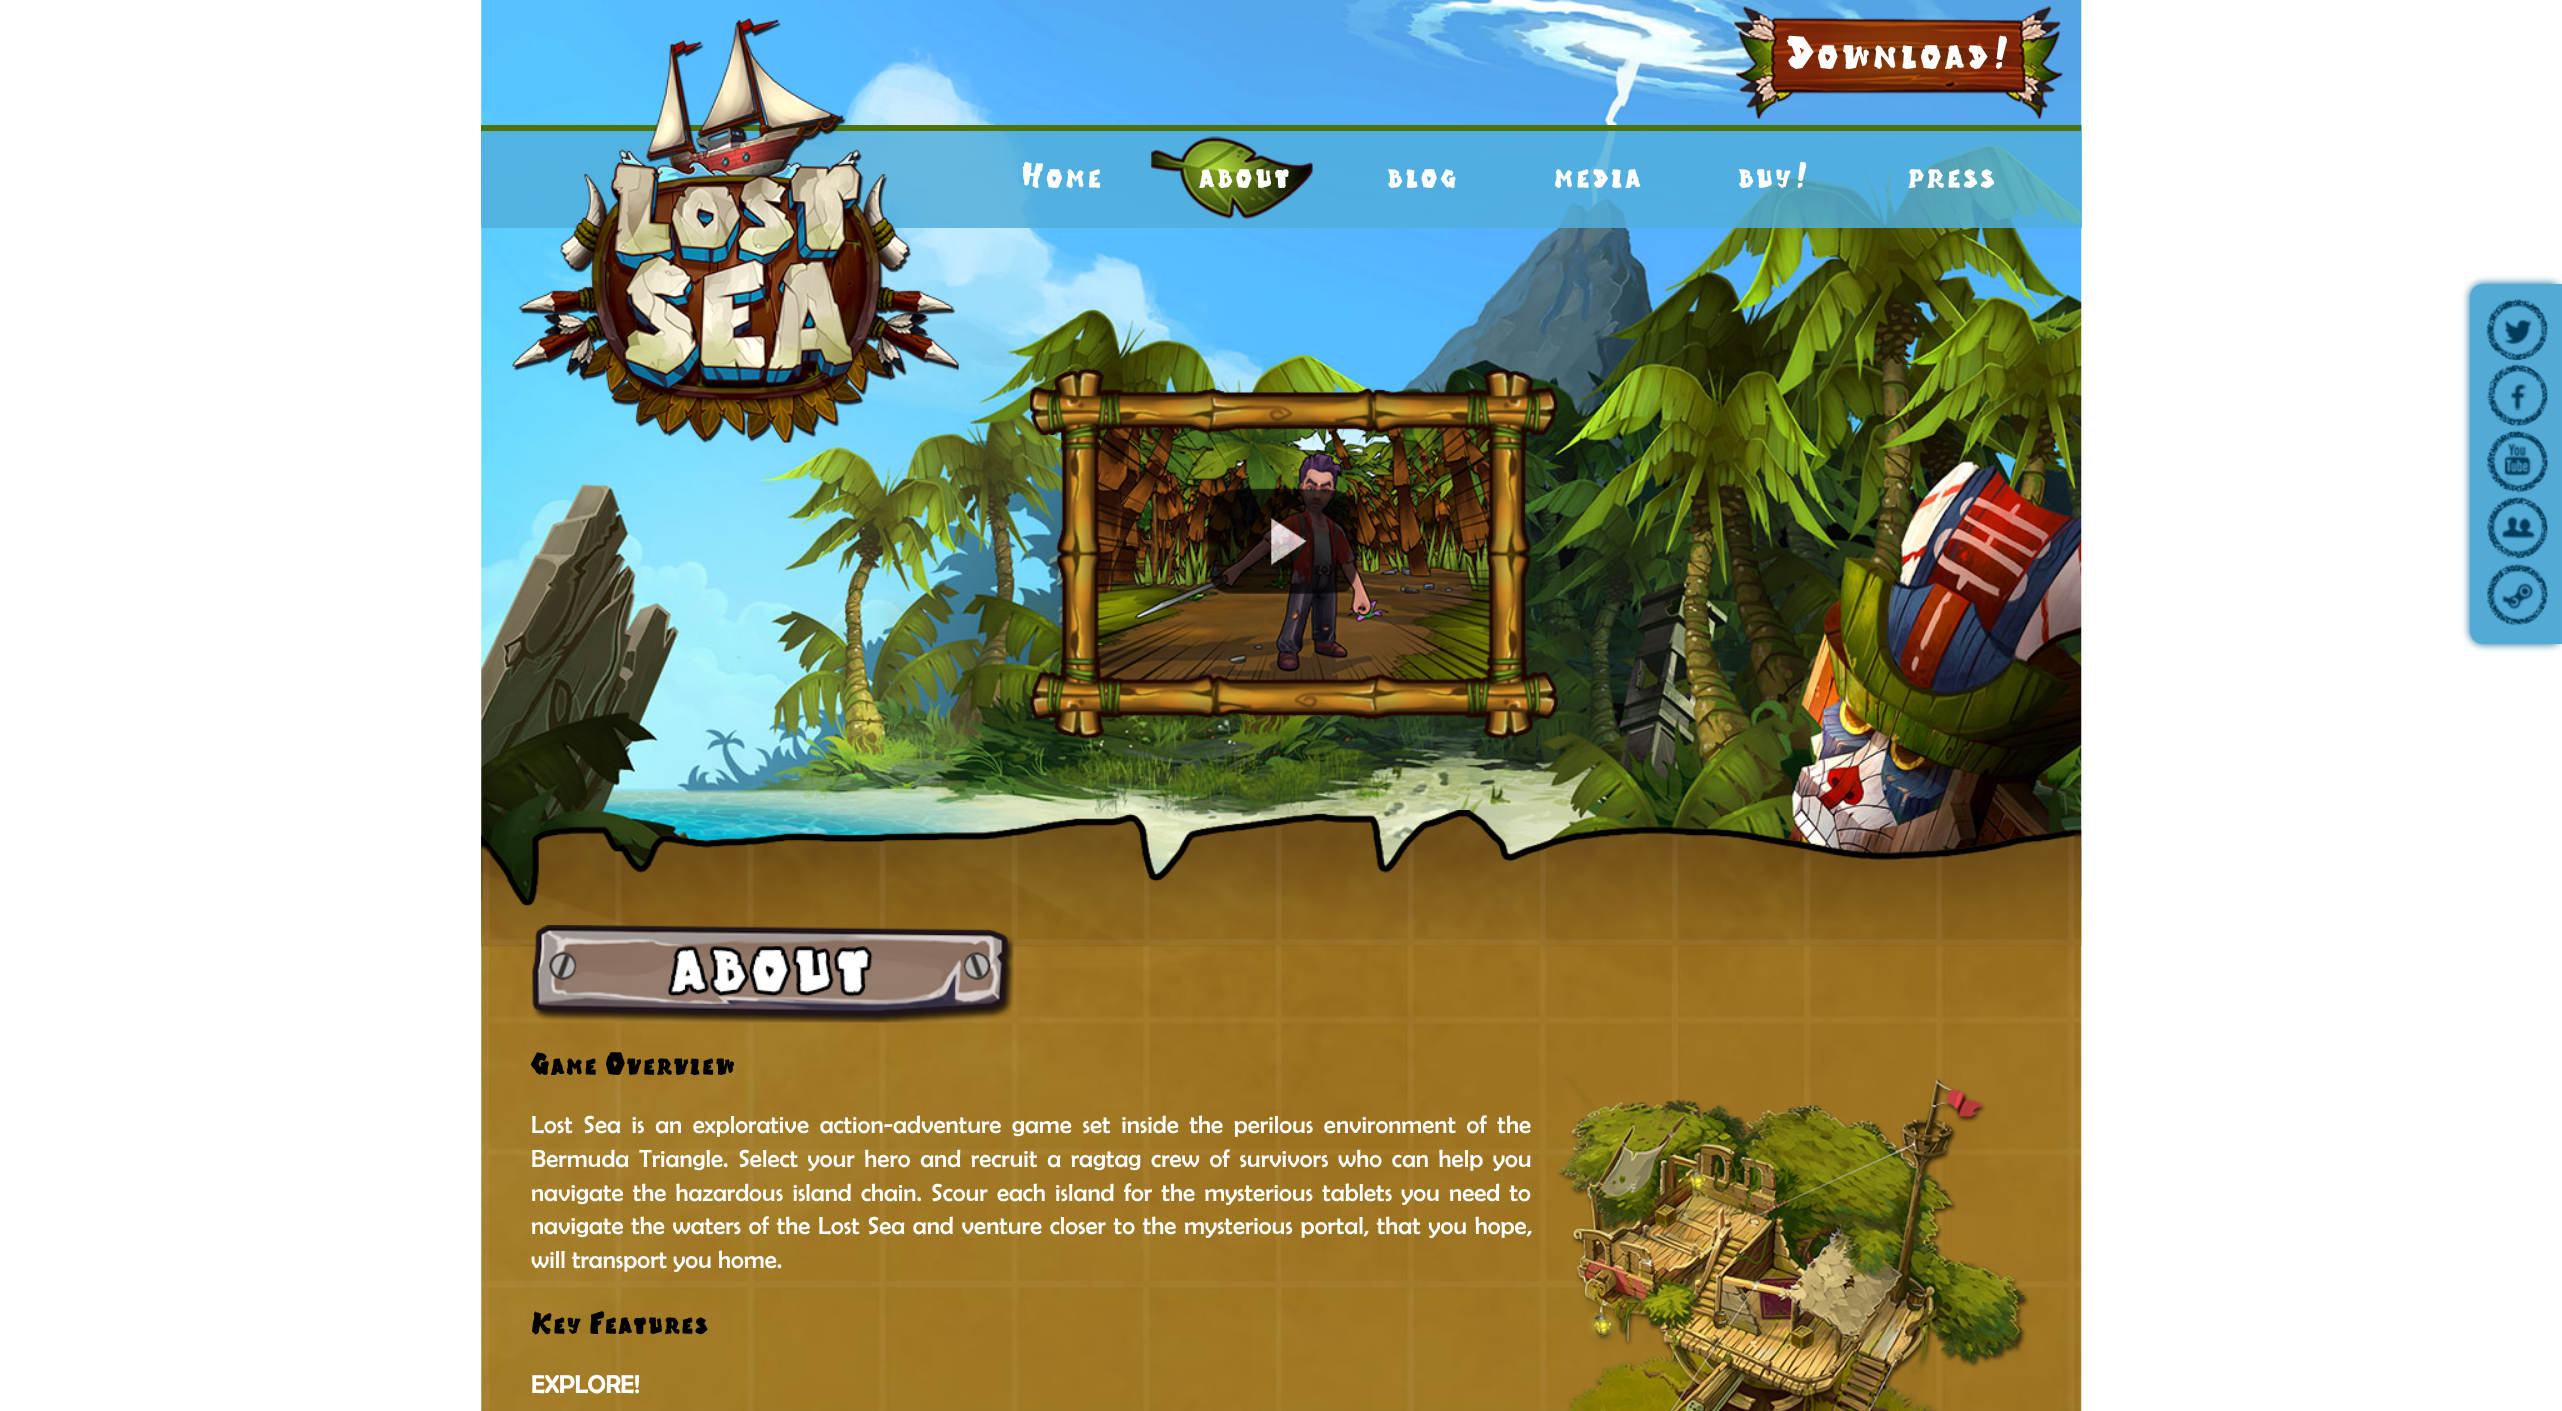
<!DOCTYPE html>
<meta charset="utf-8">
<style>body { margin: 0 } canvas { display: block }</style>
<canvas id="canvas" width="2562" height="1411"></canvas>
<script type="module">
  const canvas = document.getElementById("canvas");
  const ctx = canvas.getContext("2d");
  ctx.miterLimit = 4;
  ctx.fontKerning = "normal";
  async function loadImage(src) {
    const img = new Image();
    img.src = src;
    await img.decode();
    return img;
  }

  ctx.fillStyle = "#ffffff";
  ctx.fillRect(0, 0, 2562, 1411);
  ctx.drawImage(await loadImage("img1.png"), 481, 0, 1601, 900);
  ctx.fillStyle = "rgba(81, 174, 219, 0.84)";
  ctx.fillRect(481, 125, 1601, 103);
  ctx.fillStyle = "#4c7209";
  ctx.fillRect(481, 125, 1600, 6);
  ctx.drawImage(await loadImage("img2.png"), 512, 18, 447, 425);
  ctx.drawImage(await loadImage("img3.png"), 1733, 6, 330, 113);
  ctx.font = "47.5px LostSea";
  ctx.fillStyle = "#ffffff";
  ctx.fillText("Download!", 1786, 69);
  ctx.font = "37.5px LostSea";
  ctx.fillText("Home", 1021, 188);
  ctx.drawImage(await loadImage("img4.png"), 1151, 136, 162, 83);
  ctx.fillText("about", 1198, 188);
  ctx.fillText("blog", 1386, 188);
  ctx.fillText("media", 1553, 188);
  ctx.fillText("buy!", 1737, 188);
  ctx.fillText("press", 1907, 188);
  ctx.drawImage(await loadImage("img5.png"), 1029, 368, 530, 371);
  ctx.drawImage(await loadImage("img6.png"), 1207, 488, 151, 106);
  ctx.fillStyle = "#056391";
  ctx.filter = "blur(4.5px)";
  ctx.beginPath();
  ctx.roundRect(2470, 284, 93, 360, 13);
  ctx.fill();
  ctx.filter = "none";
  ctx.fillStyle = "#52aad5";
  ctx.beginPath();
  ctx.moveTo(2483, 284);
  ctx.lineTo(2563, 284);
  ctx.lineTo(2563, 644);
  ctx.lineTo(2483, 644);
  ctx.bezierCurveTo(2476, 644, 2470, 638, 2470, 631);
  ctx.lineTo(2470, 297);
  ctx.bezierCurveTo(2470, 290, 2476, 284, 2483, 284);
  ctx.closePath();
  ctx.fill();
  ctx.drawImage(await loadImage("img7.png"), 2486, 299, 62, 62);
  ctx.drawImage(await loadImage("img8.png"), 2487, 364, 61, 63);
  ctx.drawImage(await loadImage("img9.png"), 2487, 430, 62, 63);
  ctx.drawImage(await loadImage("img10.png"), 2487, 497, 61, 62);
  ctx.drawImage(await loadImage("img11.png"), 2487, 563, 61, 63);
  ctx.drawImage(await loadImage("img12.png"), 481, 900, 1601, 511);
  ctx.drawImage(await loadImage("img13.png"), 481, 810, 1601, 137);
  ctx.drawImage(await loadImage("img14.png"), 532, 925, 482, 98);
  ctx.font = "bold 31.25px LostSea";
  ctx.fillStyle = "#000000";
  ctx.fillText("Game Overview", 531, 1075);
  ctx.wordSpacing = "4.4px";
  ctx.font = "25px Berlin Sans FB";
  ctx.fillStyle = "#ffffff";
  ctx.fillText("Lost Sea is an explorative action-adventure game set inside the perilous environment of the", 531, 1133);
  ctx.wordSpacing = "3.5px";
  ctx.fillText("Bermuda Triangle. Select your hero and recruit a ragtag crew of survivors who can help you", 531, 1167);
  ctx.wordSpacing = "3px";
  ctx.fillText("navigate the hazardous island chain. Scour each island for the mysterious tablets you need to", 531, 1201);
  ctx.wordSpacing = "1.5px";
  ctx.fillText("navigate the waters of the Lost Sea and venture closer to the mysterious portal, that you hope,", 531, 1234);
  ctx.wordSpacing = "0px";
  ctx.fillText("will transport you home.", 531, 1268);
  ctx.drawImage(await loadImage("img15.png"), 1557, 1075, 472, 336);
  ctx.font = "bold 31.25px LostSea";
  ctx.fillStyle = "#000000";
  ctx.fillText("Key Features", 531, 1334);
  ctx.font = "bold 25px Berlin Sans FB";
  ctx.fillStyle = "#ffffff";
  ctx.fillText("EXPLORE!", 531, 1393);
</script>
